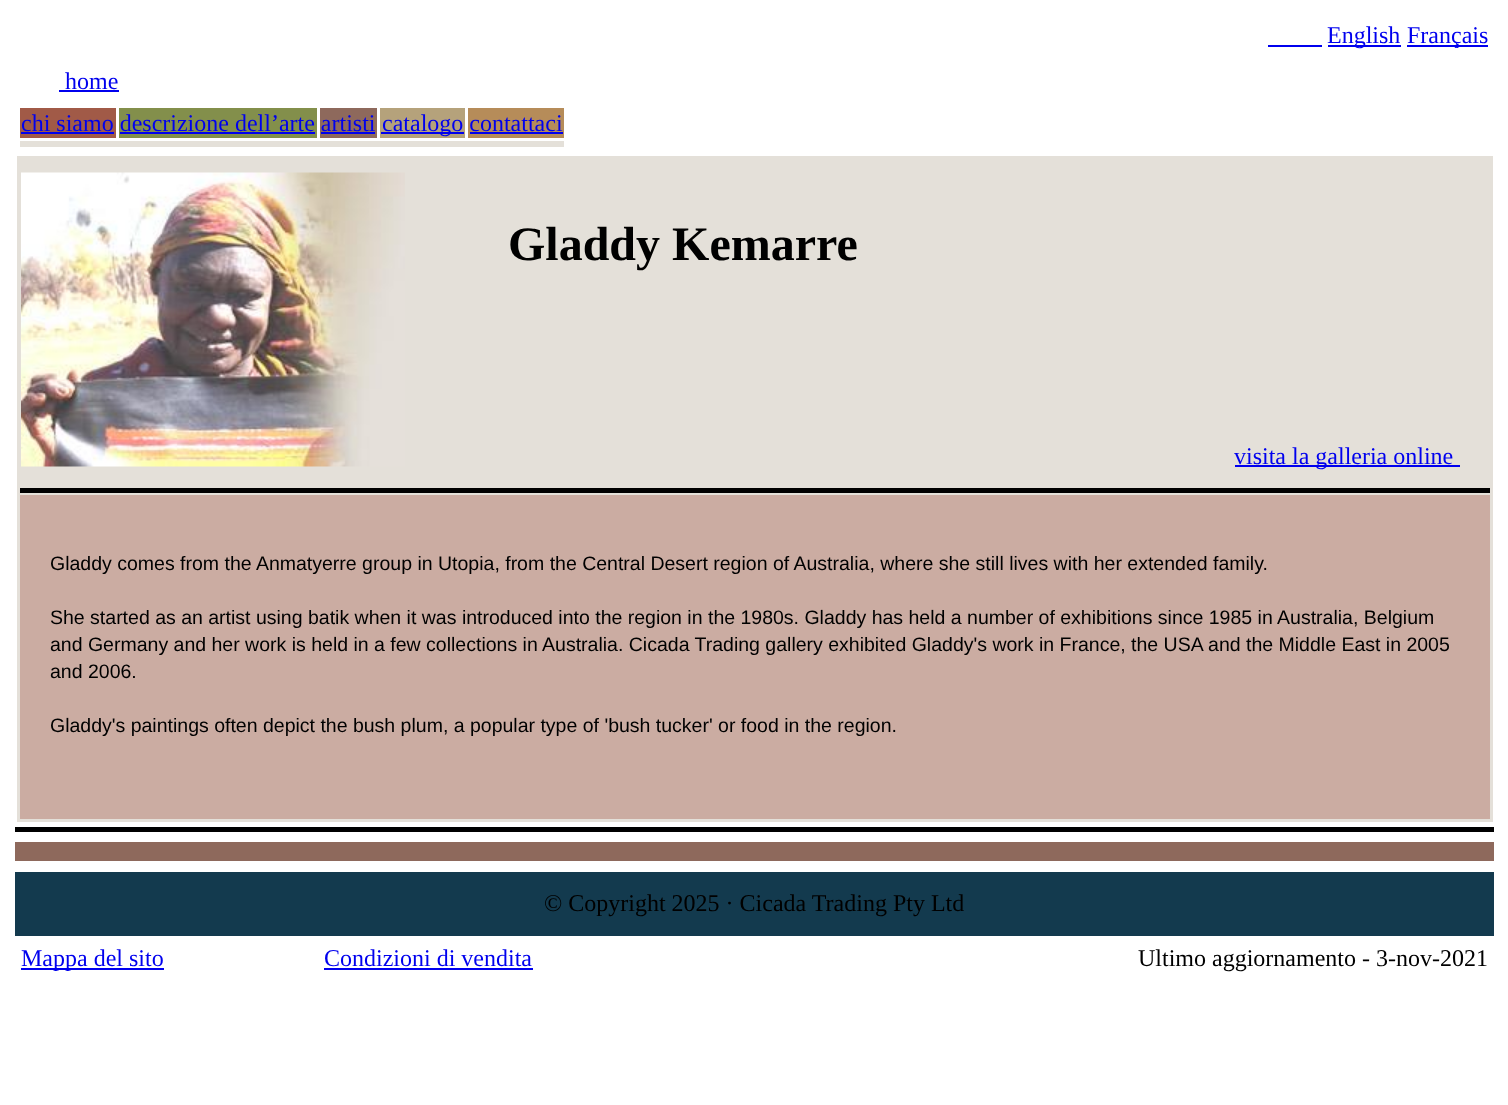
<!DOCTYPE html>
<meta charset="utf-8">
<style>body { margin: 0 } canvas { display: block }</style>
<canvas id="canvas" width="1508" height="1105"></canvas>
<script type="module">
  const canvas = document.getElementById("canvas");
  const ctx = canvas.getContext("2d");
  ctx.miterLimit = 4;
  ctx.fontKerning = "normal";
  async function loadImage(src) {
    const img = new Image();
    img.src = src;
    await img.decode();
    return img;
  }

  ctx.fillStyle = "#ffffff";
  ctx.fillRect(0, 0, 1508, 1105);
  ctx.fillStyle = "#0000ee";
  ctx.fillRect(1268, 45, 54, 2);
  ctx.fillRect(1328, 45, 73, 2);
  ctx.font = "24px Liberation Serif";
  ctx.fillText("English", 1327, 43);
  ctx.fillRect(1407, 45, 81, 2);
  ctx.fillText("Français", 1407, 43);
  ctx.fillText("home", 65, 89);
  ctx.fillRect(59, 90, 60, 2);
  ctx.fillStyle = "#838f4b";
  ctx.fillRect(119, 108, 198, 30);
  ctx.fillStyle = "#0000ee";
  ctx.fillRect(120, 132, 195, 2);
  ctx.fillStyle = "#8e695c";
  ctx.fillRect(320, 108, 57, 30);
  ctx.fillStyle = "#0000ee";
  ctx.fillRect(321, 132, 54, 2);
  ctx.fillStyle = "#b68c59";
  ctx.fillRect(468, 108, 96, 30);
  ctx.fillStyle = "#0000ee";
  ctx.fillRect(470, 132, 93, 2);
  ctx.fillStyle = "#a15a47";
  ctx.fillRect(20, 108, 96, 30);
  ctx.fillStyle = "#0000ee";
  ctx.fillText("chi siamo descrizione dell’arte artisti", 21, 131);
  ctx.fillRect(21, 132, 93, 2);
  ctx.fillStyle = "#b5a27b";
  ctx.fillRect(380, 108, 85, 30);
  ctx.fillStyle = "#0000ee";
  ctx.fillRect(381, 132, 83, 2);
  ctx.fillText("catalogo contattaci", 382, 131);
  ctx.fillStyle = "#e4e0d9";
  ctx.fillRect(20, 141, 544, 6);
  ctx.fillRect(17, 156, 1476, 666);
  ctx.drawImage(await loadImage("img1.png"), 21, 172, 384, 295);
  ctx.font = "bold 48px Liberation Serif";
  ctx.fillStyle = "#000000";
  ctx.fillText("Gladdy Kemarre", 508, 260);
  ctx.fillStyle = "#0000ee";
  ctx.fillRect(1235, 465, 225, 2);
  ctx.font = "24px Liberation Serif";
  ctx.fillText("visita la galleria online", 1234, 464);
  ctx.fillStyle = "#000000";
  ctx.fillRect(20, 488, 1470, 5);
  ctx.fillStyle = "#cbaca2";
  ctx.fillRect(20, 495, 1470, 324);
  ctx.font = "19.5px Liberation Sans";
  ctx.fillStyle = "#000000";
  ctx.fillText("Gladdy comes from the Anmatyerre group in Utopia, from the Central Desert region of Australia, where she still lives with her extended family.", 50, 570);
  ctx.fillText("She started as an artist using batik when it was introduced into the region in the 1980s. Gladdy has held a number of exhibitions since 1985 in Australia, Belgium", 50, 624);
  ctx.fillText("and Germany and her work is held in a few collections in Australia. Cicada Trading gallery exhibited Gladdy's work in France, the USA and the Middle East in 2005", 50, 651);
  ctx.fillText("and 2006.", 50, 678);
  ctx.fillText("Gladdy's paintings often depict the bush plum, a popular type of 'bush tucker' or food in the region.", 50, 732);
  ctx.fillRect(15, 827, 1479, 5);
  ctx.fillStyle = "#8e695c";
  ctx.fillRect(15, 842, 1479, 19);
  ctx.fillStyle = "#133a4e";
  ctx.fillRect(15, 872, 1479, 64);
  ctx.font = "24px Liberation Serif";
  ctx.fillStyle = "#000000";
  ctx.fillText("© Copyright 2025 · Cicada Trading Pty Ltd", 544, 911);
  ctx.fillStyle = "#0000ee";
  ctx.fillRect(21, 968, 143, 2);
  ctx.fillText("Mappa del sito", 21, 966);
  ctx.fillText("Condizioni di vendita", 324, 966);
  ctx.fillRect(324, 968, 209, 2);
  ctx.fillStyle = "#000000";
  ctx.fillText("Ultimo aggiornamento - 3-nov-2021", 1138, 966);
</script>
